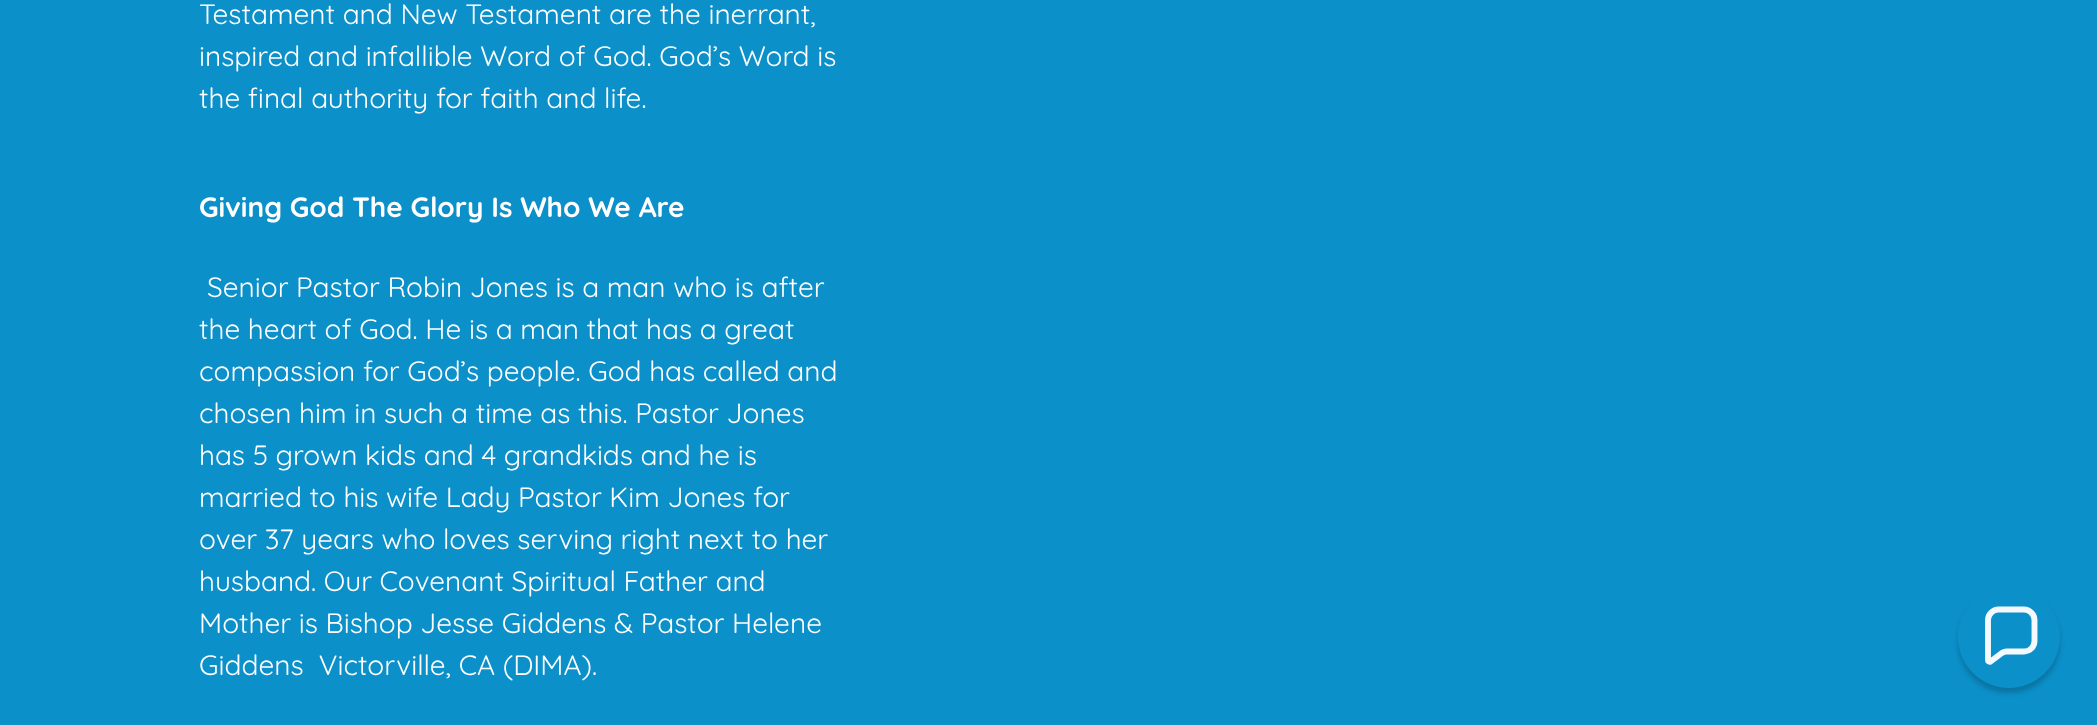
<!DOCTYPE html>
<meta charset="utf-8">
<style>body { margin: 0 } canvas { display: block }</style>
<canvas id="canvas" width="2097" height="725"></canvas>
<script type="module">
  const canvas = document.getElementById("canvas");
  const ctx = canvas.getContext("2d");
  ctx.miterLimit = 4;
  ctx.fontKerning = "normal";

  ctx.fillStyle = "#0c90c9";
  ctx.fillRect(0, 0, 2097, 725);
  ctx.font = "28px Quicksand";
  ctx.fillStyle = "#ffffff";
  ctx.fillText("Testament and New Testament are the inerrant,", 199, 24);
  ctx.fillText("inspired and infallible Word of God. God’s Word is", 199, 66);
  ctx.fillText("the final authority for faith and life.", 199, 108);
  ctx.font = "bold 28px Quicksand";
  ctx.fillText("Giving God The Glory Is Who We Are", 199, 217);
  ctx.font = "28px Quicksand";
  ctx.fillText("Senior Pastor Robin Jones is a man who is after", 207, 297);
  ctx.fillText("the heart of God. He is a man that has a great", 199, 339);
  ctx.fillText("compassion for God’s people. God has called and", 199, 381);
  ctx.fillText("chosen him in such a time as this. Pastor Jones", 199, 423);
  ctx.fillText("has 5 grown kids and 4 grandkids and he is", 199, 465);
  ctx.fillText("married to his wife Lady Pastor Kim Jones for", 199, 507);
  ctx.fillText("over 37 years who loves serving right next to her", 199, 549);
  ctx.fillText("husband. Our Covenant Spiritual Father and", 199, 591);
  ctx.fillText("Mother is Bishop Jesse Giddens & Pastor Helene", 199, 633);
  ctx.fillText("Giddens  Victorville, CA (DIMA).", 199, 675);
  ctx.fillStyle = "rgba(1, 7, 10, 0.2)";
  ctx.filter = "blur(2.5px)";
  ctx.beginPath();
  ctx.roundRect(1958, 592, 102, 101, 50.5);
  ctx.fill();
  ctx.filter = "none";
  ctx.fillStyle = "#0c90c9";
  ctx.beginPath();
  ctx.arc(2009, 637, 51, 0, Math.PI * 2);
  ctx.fill();
  ctx.beginPath();
  ctx.moveTo(2024, 609.5);
  ctx.lineTo(1998.5, 609.5);
  ctx.bezierCurveTo(1993, 609.5, 1988, 614.5, 1988, 620);
  ctx.lineTo(1988, 660.5);
  ctx.bezierCurveTo(1988, 661.5, 1989.5, 662, 1990.5, 661.5);
  ctx.lineTo(2002, 653);
  ctx.bezierCurveTo(2003.5, 652, 2005, 651.5, 2006.5, 651.5);
  ctx.lineTo(2024, 651.5);
  ctx.bezierCurveTo(2029.5, 651.5, 2034.5, 647, 2034.5, 641);
  ctx.lineTo(2034.5, 620);
  ctx.bezierCurveTo(2034.5, 614.5, 2029.5, 609.5, 2024, 609.5);
  ctx.closePath();
  ctx.strokeStyle = "#f3f9fc";
  ctx.lineWidth = 5.9;
  ctx.stroke();
</script>
